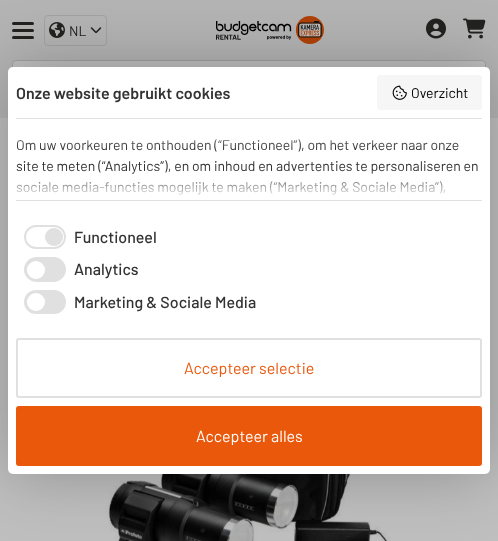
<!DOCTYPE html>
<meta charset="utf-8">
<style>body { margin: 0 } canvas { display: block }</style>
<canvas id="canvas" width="498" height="541"></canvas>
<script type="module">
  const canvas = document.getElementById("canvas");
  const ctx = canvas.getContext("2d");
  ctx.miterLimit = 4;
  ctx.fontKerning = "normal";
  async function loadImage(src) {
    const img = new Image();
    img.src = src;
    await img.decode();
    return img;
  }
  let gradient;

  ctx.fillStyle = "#bfbfbf";
  ctx.fillRect(0, 0, 498, 541);
  ctx.fillStyle = "#b4b4b4";
  ctx.fillRect(0, 0, 498, 118);
  ctx.fillStyle = "#232221";
  ctx.beginPath();
  ctx.roundRect(12, 29, 22, 3, 1.5);
  ctx.fill();
  ctx.beginPath();
  ctx.roundRect(12, 22, 22, 3, 1.5);
  ctx.fill();
  ctx.beginPath();
  ctx.roundRect(12, 36, 22, 3, 1.5);
  ctx.fill();
  ctx.beginPath();
  ctx.roundRect(44.5, 15.5, 62, 30, 3.5);
  ctx.strokeStyle = "#a2a2a2";
  ctx.stroke();
  ctx.drawImage(await loadImage("img1.png"), 49, 22, 16, 16);
  ctx.font = "14px Barlow";
  ctx.fillText("NL", 69, 36);
  ctx.drawImage(await loadImage("img2.png"), 90, 27, 12, 7);
  ctx.drawImage(await loadImage("img3.png"), 216, 16, 108, 28);
  ctx.drawImage(await loadImage("img4.png"), 426, 18, 20, 21);
  ctx.drawImage(await loadImage("img5.png"), 463, 18, 23, 21);
  ctx.fillStyle = "#bfbfbf";
  ctx.beginPath();
  ctx.roundRect(12.5, 60.5, 473, 41, 3.5);
  ctx.fill();
  ctx.stroke();
  ctx.drawImage(await loadImage("img7.png"), 105, 474, 286, 67);
  ctx.fillStyle = "rgba(0, 0, 0, 0.25)";
  ctx.filter = "blur(32px)";
  ctx.beginPath();
  ctx.roundRect(8, 67, 482, 407, 5);
  ctx.fill();
  ctx.filter = "none";
  ctx.fillStyle = "#ffffff";
  ctx.beginPath();
  ctx.roundRect(8, 67, 482, 407, 5);
  ctx.fill();
  ctx.font = "600 16px Barlow";
  ctx.fillStyle = "#333333";
  ctx.fillText("Onze website gebruikt cookies", 16, 99);
  ctx.fillStyle = "#f6f6f6";
  ctx.beginPath();
  ctx.roundRect(377, 75, 105, 35, 3);
  ctx.fill();
  ctx.drawImage(await loadImage("img6.png"), 392, 85, 15, 15);
  ctx.font = "14px Barlow";
  ctx.fillStyle = "#000000";
  ctx.fillText("Overzicht", 411, 98);
  ctx.fillStyle = "#e0e0e0";
  ctx.fillRect(16, 118, 466, 1);
  ctx.fillRect(16, 200, 466, 1);
  ctx.fillStyle = "#333333";
  ctx.fillText("Om uw voorkeuren te onthouden (“Functioneel”), om het verkeer naar onze", 16, 150);
  ctx.fillText("site te meten (“Analytics”), en om inhoud en advertenties te personaliseren en", 16, 171);
  ctx.fillText("sociale media-functies mogelijk te maken (“Marketing & Sociale Media”),", 16, 192);
  gradient = ctx.createLinearGradient(249, 148, 249, 118);
  gradient.addColorStop(0, "rgba(255, 255, 255, 0)");
  gradient.addColorStop(1, "#ffffff");
  ctx.fillStyle = gradient;
  ctx.fillRect(17, 139, 442, 8);
  gradient = ctx.createLinearGradient(249, 170, 249, 200);
  gradient.addColorStop(0, "rgba(255, 255, 255, 0)");
  gradient.addColorStop(1, "#ffffff");
  ctx.fillStyle = gradient;
  ctx.fillRect(16, 171, 429, 24);
  ctx.beginPath();
  ctx.roundRect(25, 226, 40, 22, 11);
  ctx.strokeStyle = "#e0e0e0";
  ctx.lineWidth = 2;
  ctx.stroke();
  ctx.fillStyle = "#e0e0e0";
  ctx.beginPath();
  ctx.arc(54, 237, 9, 0, Math.PI * 2);
  ctx.fill();
  ctx.font = "500 16px Barlow";
  ctx.fillStyle = "#333333";
  ctx.fillText("Functioneel", 74, 243);
  ctx.fillStyle = "#e0e0e0";
  ctx.beginPath();
  ctx.roundRect(25, 258, 40, 23, 11.5);
  ctx.fill();
  ctx.stroke();
  ctx.fillStyle = "#ffffff";
  ctx.beginPath();
  ctx.arc(36, 270, 9, 0, Math.PI * 2);
  ctx.fill();
  ctx.fillStyle = "#333333";
  ctx.fillText("Analytics", 74, 275);
  ctx.fillStyle = "#e0e0e0";
  ctx.beginPath();
  ctx.roundRect(25, 291, 40, 22, 11);
  ctx.fill();
  ctx.stroke();
  ctx.fillStyle = "#ffffff";
  ctx.beginPath();
  ctx.arc(36, 302, 9, 0, Math.PI * 2);
  ctx.fill();
  ctx.fillStyle = "#333333";
  ctx.fillText("Marketing & Sociale Media", 74, 308);
  ctx.beginPath();
  ctx.roundRect(17, 339, 464, 58, 2);
  ctx.stroke();
  ctx.font = "16px Barlow";
  ctx.fillStyle = "#ea580c";
  ctx.fillText("Accepteer selectie", 184, 374);
  ctx.beginPath();
  ctx.roundRect(17, 407, 464, 58, 2);
  ctx.fill();
  ctx.strokeStyle = "#ea580c";
  ctx.stroke();
  ctx.fillStyle = "#ffffff";
  ctx.fillText("Accepteer alles", 196, 442);
</script>
